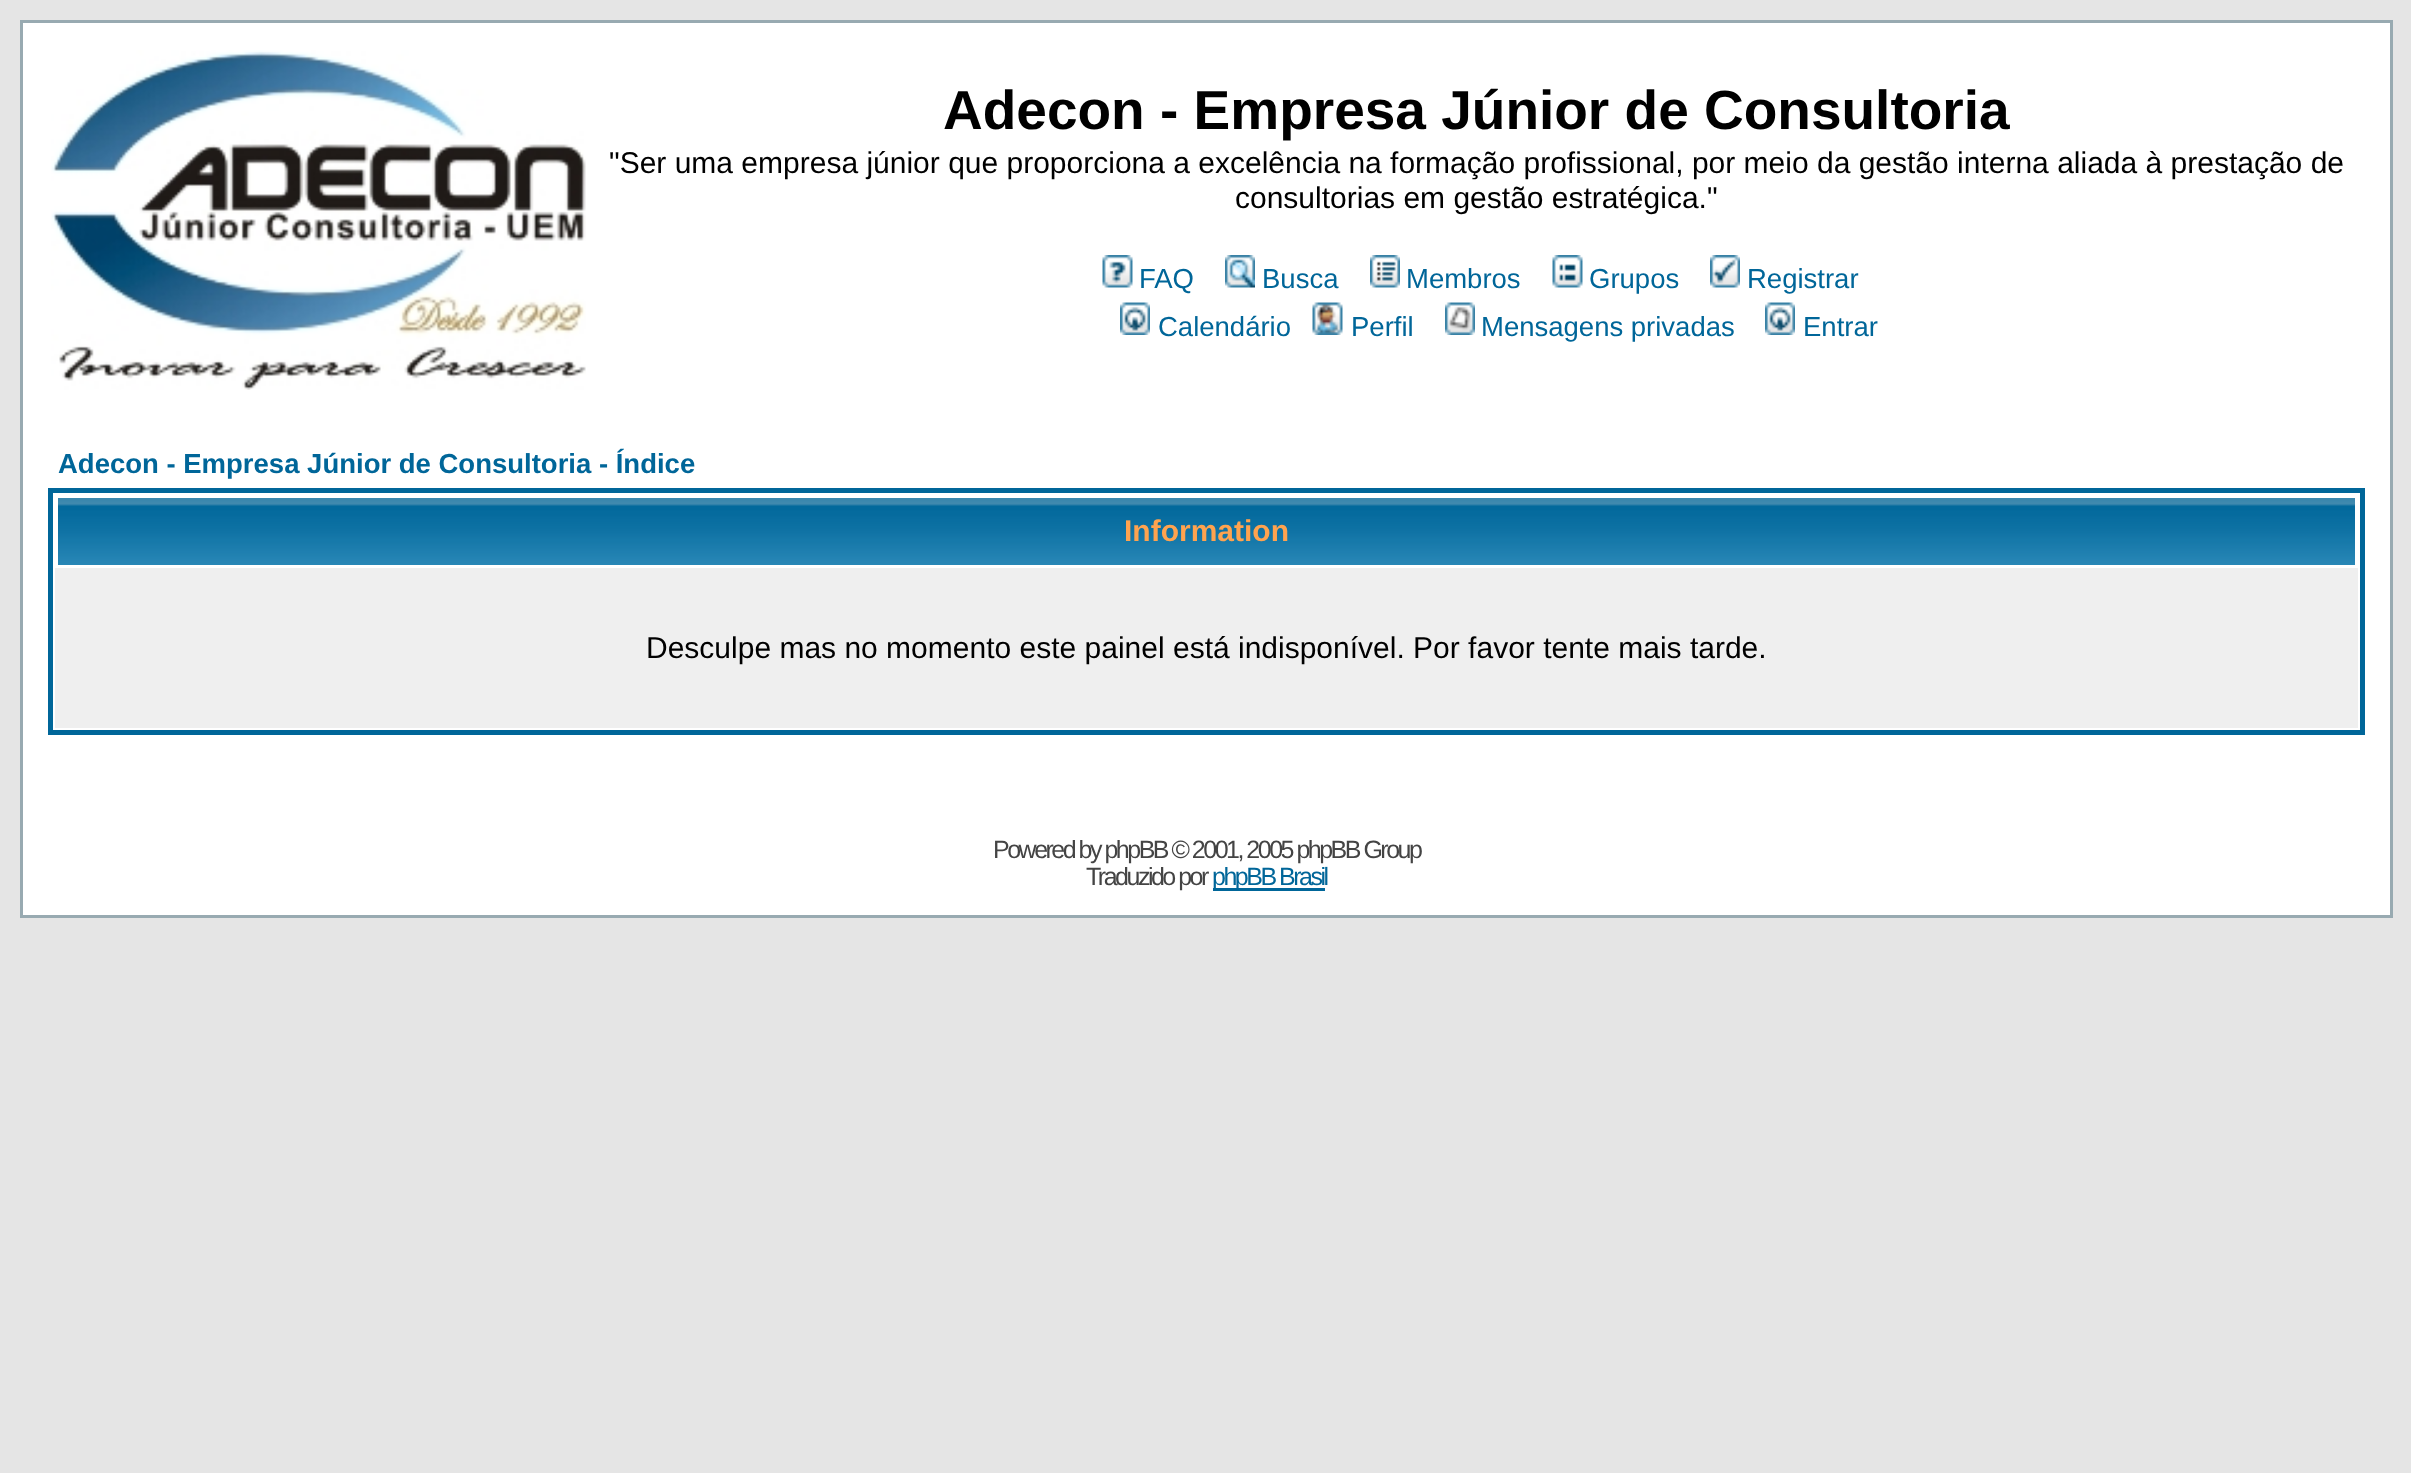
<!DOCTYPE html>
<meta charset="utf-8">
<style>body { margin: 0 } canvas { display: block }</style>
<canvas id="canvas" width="2411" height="1473"></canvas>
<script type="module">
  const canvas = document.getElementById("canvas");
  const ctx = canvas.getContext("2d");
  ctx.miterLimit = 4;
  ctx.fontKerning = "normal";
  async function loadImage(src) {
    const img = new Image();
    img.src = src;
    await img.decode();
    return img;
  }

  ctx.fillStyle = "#e5e5e5";
  ctx.fillRect(0, 0, 2411, 1473);
  ctx.fillStyle = "#ffffff";
  ctx.beginPath();
  ctx.rect(21.5, 21.5, 2370, 895);
  ctx.fill();
  ctx.strokeStyle = "#98aab1";
  ctx.lineWidth = 3;
  ctx.stroke();
  ctx.drawImage(await loadImage("img1.png"), 51, 50, 535, 340);
  ctx.font = "bold 55px Liberation Sans";
  ctx.fillStyle = "#000000";
  ctx.fillText("Adecon - Empresa Júnior de Consultoria", 943, 129);
  ctx.font = "30px Liberation Sans";
  ctx.fillText("\"Ser uma empresa júnior que proporciona a excelência na formação profissional, por meio da gestão interna aliada à prestação de", 609, 173);
  ctx.fillText("consultorias em gestão estratégica.\"", 1235, 208);
  ctx.drawImage(await loadImage("img2.png"), 1102, 255, 31, 33);
  ctx.font = "27.5px Liberation Sans";
  ctx.fillStyle = "#006699";
  ctx.fillText("FAQ", 1139, 288);
  ctx.drawImage(await loadImage("img3.png"), 1225, 255, 30, 33);
  ctx.fillText("Busca", 1262, 288);
  ctx.drawImage(await loadImage("img4.png"), 1370, 255, 30, 33);
  ctx.fillText("Membros", 1406, 288);
  ctx.drawImage(await loadImage("img5.png"), 1552, 255, 31, 33);
  ctx.fillText("Grupos", 1589, 288);
  ctx.drawImage(await loadImage("img6.png"), 1710, 255, 30, 33);
  ctx.fillText("Registrar", 1747, 288);
  ctx.drawImage(await loadImage("img7.png"), 1120, 302, 30, 33);
  ctx.fillText("Calendário", 1158, 336);
  ctx.drawImage(await loadImage("img8.png"), 1312, 302, 31, 33);
  ctx.fillText("Perfil", 1351, 336);
  ctx.drawImage(await loadImage("img9.png"), 1445, 302, 30, 33);
  ctx.fillText("Mensagens privadas", 1481, 336);
  ctx.drawImage(await loadImage("img10.png"), 1765, 302, 30, 33);
  ctx.fillText("Entrar", 1803, 336);
  ctx.font = "bold 27.5px Liberation Sans";
  ctx.fillText("Adecon - Empresa Júnior de Consultoria - Índice", 58, 473);
  ctx.strokeStyle = "#006699";
  ctx.lineWidth = 5;
  ctx.strokeRect(50.5, 490.5, 2312, 242);
  ctx.drawImage(await loadImage("img11.png"), 58, 498, 2297, 67);
  ctx.font = "bold 30px Liberation Sans";
  ctx.fillStyle = "#ffa34f";
  ctx.fillText("Information", 1124, 541);
  ctx.fillStyle = "#efefef";
  ctx.fillRect(55, 568, 2303, 160);
  ctx.font = "30px Liberation Sans";
  ctx.fillStyle = "#000000";
  ctx.fillText("Desculpe mas no momento este painel está indisponível. Por favor tente mais tarde.", 646, 658);
  ctx.letterSpacing = "-2.5px";
  ctx.font = "25px Liberation Sans";
  ctx.fillStyle = "#444444";
  ctx.fillText("Powered by phpBB © 2001, 2005 phpBB Group", 993, 858);
  ctx.fillText("Traduzido por", 1086, 885);
  ctx.fillStyle = "#006699";
  ctx.fillRect(1213, 888, 112, 3);
  ctx.fillText("phpBB Brasil", 1212, 885);
</script>
